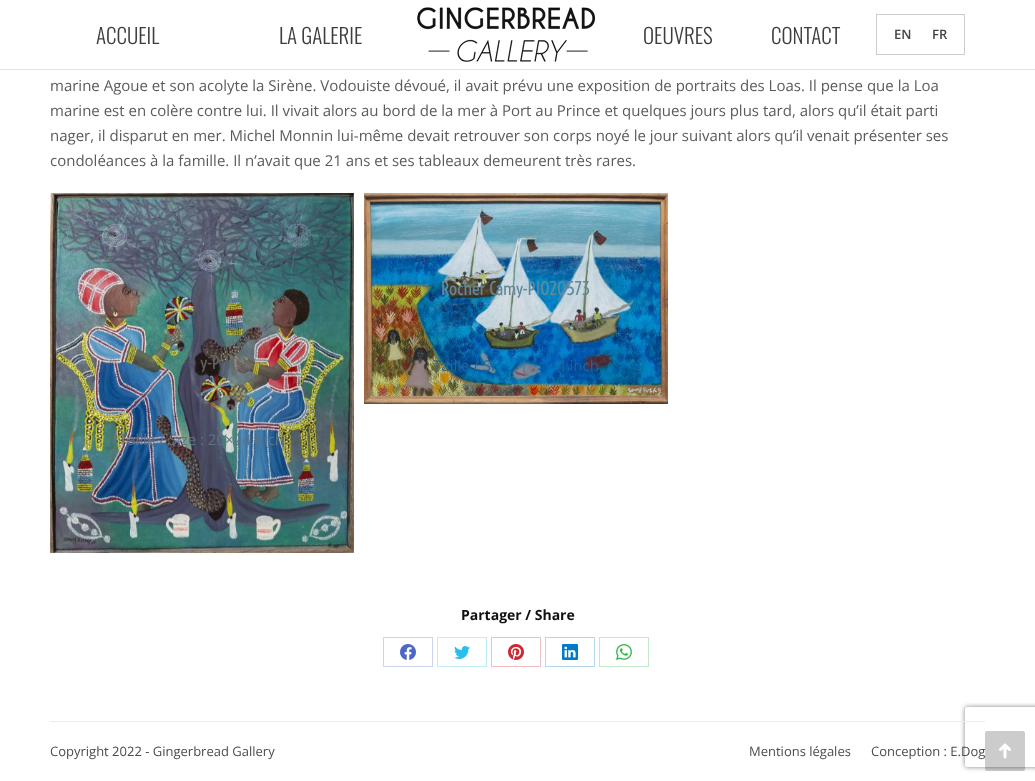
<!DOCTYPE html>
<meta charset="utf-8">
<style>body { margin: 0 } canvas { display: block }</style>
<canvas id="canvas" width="1035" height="781"></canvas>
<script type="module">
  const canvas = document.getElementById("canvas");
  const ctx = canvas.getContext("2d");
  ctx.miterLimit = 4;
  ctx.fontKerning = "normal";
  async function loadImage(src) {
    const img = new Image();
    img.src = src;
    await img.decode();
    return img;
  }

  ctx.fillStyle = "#ffffff";
  ctx.fillRect(0, 0, 1035, 781);
  ctx.fillStyle = "#e3e3e3";
  ctx.fillRect(0, 69, 1035, 1);
  ctx.font = "300 21px Oswald";
  ctx.fillStyle = "#3d3d3d";
  ctx.fillText("ACCUEIL", 96, 44);
  ctx.fillText("LA GALERIE", 279, 44);
  ctx.drawImage(await loadImage("img1.png"), 417, 7, 179, 55);
  ctx.fillText("OEUVRES", 643, 44);
  ctx.fillText("CONTACT", 771, 44);
  ctx.strokeStyle = "#cdcdcd";
  ctx.strokeRect(876.5, 14.5, 88, 40);
  ctx.font = "600 13px Open Sans";
  ctx.fillStyle = "#444444";
  ctx.fillText("EN", 894, 39);
  ctx.fillText("FR", 932, 39);
  ctx.font = "15px Open Sans";
  ctx.fillStyle = "#5b5b5b";
  ctx.fillText("marine Agoue et son acolyte la Sirène. Vodouiste dévoué, il avait prévu une exposition de portraits des Loas. Il pense que la Loa", 50, 91);
  ctx.fillText("marine est en colère contre lui. Il vivait alors au bord de la mer à Port au Prince et quelques jours plus tard, alors qu’il était parti", 50, 116);
  ctx.fillText("nager, il disparut en mer. Michel Monnin lui-même devait retrouver son corps noyé le jour suivant alors qu’il venait présenter ses", 50, 141);
  ctx.fillText("condoléances à la famille. Il n’avait que 21 ans et ses tableaux demeurent très rares.", 50, 166);
  ctx.drawImage(await loadImage("img2.png"), 364, 193, 304, 211);
  ctx.font = "18px Voltaire";
  ctx.fillStyle = "#62899a";
  ctx.fillText("Rocher Camy-P1020573", 441, 295);
  ctx.font = "15px Open Sans";
  ctx.fillStyle = "#226396";
  ctx.fillText("Taille / Si", 433, 371);
  ctx.fillText("4 inch", 557, 371);
  ctx.drawImage(await loadImage("img3.png"), 50, 193, 304, 360);
  ctx.font = "18px Voltaire";
  ctx.fillStyle = "#63625a";
  ctx.fillText("y-P", 200, 369);
  ctx.font = "15px Open Sans";
  ctx.fillStyle = "#5c7387";
  ctx.fillText("Taille / Size : 20×24 inch", 119, 445);
  ctx.font = "bold 14px Open Sans";
  ctx.fillStyle = "#111111";
  ctx.fillText("Partager / Share", 461, 620);
  ctx.strokeStyle = "#c9d2ee";
  ctx.strokeRect(383.5, 637.5, 49, 29);
  ctx.drawImage(await loadImage("img4.png"), 400, 644, 16, 16);
  ctx.strokeStyle = "#bfecf9";
  ctx.strokeRect(437.5, 637.5, 49, 29);
  ctx.drawImage(await loadImage("img5.png"), 454, 646, 16, 13);
  ctx.strokeStyle = "#f1bfc2";
  ctx.strokeRect(491.5, 637.5, 49, 29);
  ctx.drawImage(await loadImage("img6.png"), 508, 644, 16, 16);
  ctx.strokeStyle = "#b3d7ee";
  ctx.strokeRect(545.5, 637.5, 49, 29);
  ctx.drawImage(await loadImage("img7.png"), 562, 644, 16, 16);
  ctx.strokeStyle = "#c3e9ca";
  ctx.strokeRect(599.5, 637.5, 49, 29);
  ctx.drawImage(await loadImage("img8.png"), 616, 644, 16, 16);
  ctx.save();
  ctx.beginPath();
  ctx.moveTo(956, 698);
  ctx.lineTo(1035, 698);
  ctx.lineTo(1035, 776);
  ctx.lineTo(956, 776);
  ctx.closePath();
  ctx.moveTo(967, 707);
  ctx.lineTo(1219, 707);
  ctx.bezierCurveTo(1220, 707, 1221, 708, 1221, 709);
  ctx.lineTo(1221, 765);
  ctx.bezierCurveTo(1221, 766, 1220, 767, 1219, 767);
  ctx.lineTo(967, 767);
  ctx.bezierCurveTo(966, 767, 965, 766, 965, 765);
  ctx.lineTo(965, 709);
  ctx.bezierCurveTo(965, 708, 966, 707, 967, 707);
  ctx.closePath();
  ctx.clip("evenodd");
  ctx.fillStyle = "#808080";
  ctx.filter = "blur(2.5px)";
  ctx.beginPath();
  ctx.roundRect(965, 707, 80, 60, 2);
  ctx.fill();
  ctx.filter = "none";
  ctx.restore();
  ctx.fillStyle = "#ededed";
  ctx.fillRect(50, 721, 935, 1);
  ctx.font = "13px Open Sans";
  ctx.fillStyle = "#4c4c4c";
  ctx.fillText("Copyright 2022 - Gingerbread Gallery", 50, 756);
  ctx.fillText("Mentions légales", 749, 756);
  ctx.fillText("Conception : E.Dog", 871, 756);
  ctx.fillStyle = "rgba(0, 0, 0, 0.2)";
  ctx.beginPath();
  ctx.roundRect(985, 731, 40, 40, 2);
  ctx.fill();
  ctx.drawImage(await loadImage("img9.png"), 999, 743, 12, 16);
</script>
